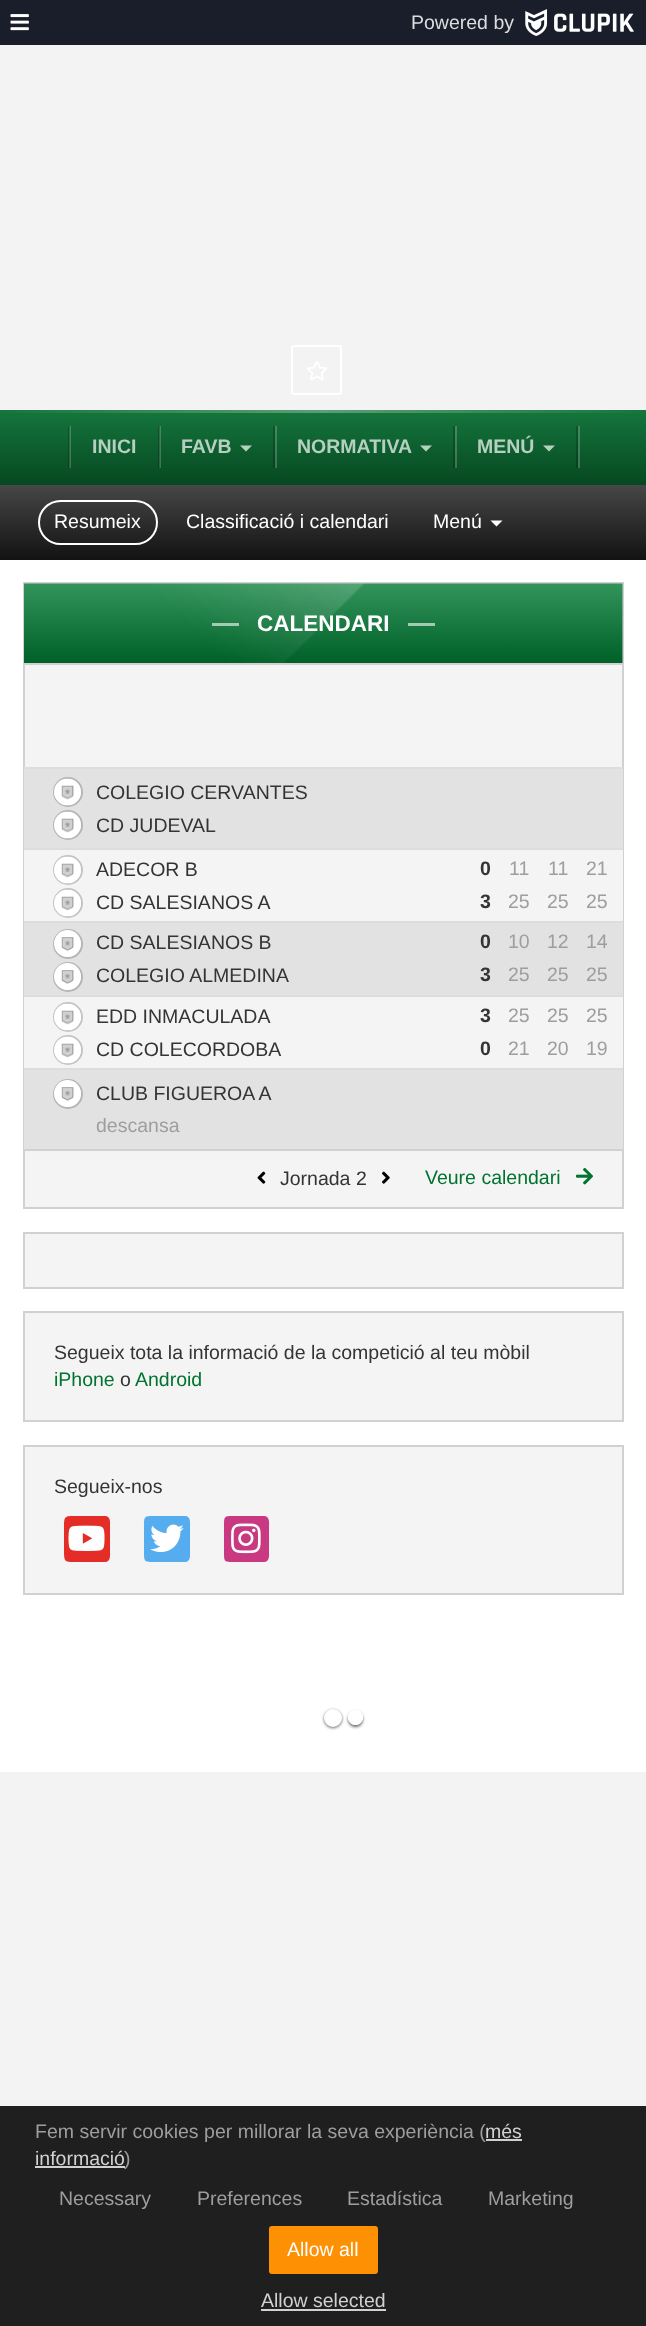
<!DOCTYPE html>
<meta charset="utf-8">
<style>body { margin: 0 } canvas { display: block }</style>
<canvas id="canvas" width="646" height="2326"></canvas>
<script type="module">
  const canvas = document.getElementById("canvas");
  const ctx = canvas.getContext("2d");
  ctx.miterLimit = 4;
  ctx.fontKerning = "normal";
  async function loadImage(src) {
    const img = new Image();
    img.src = src;
    await img.decode();
    return img;
  }
  let gradient;

  ctx.fillStyle = "#f3f3f3";
  ctx.fillRect(0, 0, 646, 2326);
  ctx.fillStyle = "#1a1e2a";
  ctx.fillRect(0, 0, 646, 45);
  ctx.drawImage(await loadImage("img1.png"), 10, 14, 19, 17);
  ctx.font = "19.5px Liberation Sans";
  ctx.fillStyle = "#dddddf";
  ctx.fillText("Powered by", 411, 29);
  ctx.drawImage(await loadImage("img2.png"), 525, 9, 109, 27);
  ctx.beginPath();
  ctx.roundRect(292, 346, 49, 48, 2);
  ctx.strokeStyle = "#ffffff";
  ctx.lineWidth = 2;
  ctx.stroke();
  ctx.drawImage(await loadImage("img3.png"), 307, 361, 20, 20);
  gradient = ctx.createLinearGradient(0, 411, 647, 411);
  gradient.addColorStop(0, "#15753c");
  gradient.addColorStop(0.5, "#5b9e77");
  gradient.addColorStop(1, "#15753c");
  ctx.fillStyle = gradient;
  ctx.fillRect(0, 410, 646, 3);
  gradient = ctx.createLinearGradient(323, 410, 323, 485);
  gradient.addColorStop(0, "#15763d");
  gradient.addColorStop(1, "#064821");
  ctx.fillStyle = gradient;
  ctx.fillRect(0, 413, 646, 72);
  gradient = ctx.createLinearGradient(323, 410, 323, 485);
  gradient.addColorStop(0, "#115e31");
  gradient.addColorStop(1, "#053a1a");
  ctx.fillStyle = gradient;
  ctx.fillRect(576, 426, 2, 42);
  gradient = ctx.createLinearGradient(323, 410, 323, 485);
  gradient.addColorStop(0, "#449164");
  gradient.addColorStop(1, "#386d4d");
  ctx.fillStyle = gradient;
  ctx.fillRect(578, 426, 2, 42);
  gradient = ctx.createLinearGradient(323, 410, 323, 485);
  gradient.addColorStop(0, "#115e31");
  gradient.addColorStop(1, "#053a1a");
  ctx.fillStyle = gradient;
  ctx.fillRect(453, 426, 2, 42);
  gradient = ctx.createLinearGradient(323, 410, 323, 485);
  gradient.addColorStop(0, "#449164");
  gradient.addColorStop(1, "#386d4d");
  ctx.fillStyle = gradient;
  ctx.fillRect(455, 426, 2, 42);
  gradient = ctx.createLinearGradient(323, 410, 323, 485);
  gradient.addColorStop(0, "#115e31");
  gradient.addColorStop(1, "#053a1a");
  ctx.fillStyle = gradient;
  ctx.fillRect(273, 426, 2, 42);
  gradient = ctx.createLinearGradient(323, 410, 323, 485);
  gradient.addColorStop(0, "#449164");
  gradient.addColorStop(1, "#386d4d");
  ctx.fillStyle = gradient;
  ctx.fillRect(275, 426, 2, 42);
  gradient = ctx.createLinearGradient(323, 410, 323, 485);
  gradient.addColorStop(0, "#115e31");
  gradient.addColorStop(1, "#053a1a");
  ctx.fillStyle = gradient;
  ctx.fillRect(158, 426, 1, 42);
  gradient = ctx.createLinearGradient(323, 410, 323, 485);
  gradient.addColorStop(0, "#449164");
  gradient.addColorStop(1, "#386d4d");
  ctx.fillStyle = gradient;
  ctx.fillRect(160, 426, 1, 42);
  gradient = ctx.createLinearGradient(323, 410, 323, 485);
  gradient.addColorStop(0, "#367450");
  gradient.addColorStop(1, "#2d573e");
  ctx.fillStyle = gradient;
  ctx.fillRect(159, 426, 1, 42);
  gradient = ctx.createLinearGradient(323, 410, 323, 485);
  gradient.addColorStop(0, "#115e31");
  gradient.addColorStop(1, "#053a1a");
  ctx.fillStyle = gradient;
  ctx.fillRect(68, 426, 1, 42);
  gradient = ctx.createLinearGradient(323, 410, 323, 485);
  gradient.addColorStop(0, "#449164");
  gradient.addColorStop(1, "#386d4d");
  ctx.fillStyle = gradient;
  ctx.fillRect(70, 426, 1, 42);
  gradient = ctx.createLinearGradient(323, 410, 323, 485);
  gradient.addColorStop(0, "#367450");
  gradient.addColorStop(1, "#2d573e");
  ctx.fillStyle = gradient;
  ctx.fillRect(69, 426, 1, 42);
  ctx.font = "bold 19.5px Liberation Sans";
  ctx.fillStyle = "#b7cfc1";
  ctx.fillText("INICI", 92, 453);
  ctx.fillText("FAVB", 181, 453);
  ctx.fillStyle = "rgba(255, 255, 255, 0.7)";
  ctx.beginPath();
  ctx.moveTo(240, 445.5);
  ctx.lineTo(252, 445.5);
  ctx.lineTo(246, 451.5);
  ctx.closePath();
  ctx.fill();
  ctx.fillStyle = "#b7cfc1";
  ctx.fillText("NORMATIVA", 297, 453);
  ctx.fillStyle = "rgba(255, 255, 255, 0.7)";
  ctx.beginPath();
  ctx.moveTo(420, 445.5);
  ctx.lineTo(432, 445.5);
  ctx.lineTo(426, 451.5);
  ctx.closePath();
  ctx.fill();
  ctx.fillStyle = "#b7cfc1";
  ctx.fillText("MENÚ", 477, 453);
  ctx.fillStyle = "rgba(255, 255, 255, 0.7)";
  ctx.beginPath();
  ctx.moveTo(543, 445.5);
  ctx.lineTo(555, 445.5);
  ctx.lineTo(549, 451.5);
  ctx.closePath();
  ctx.fill();
  gradient = ctx.createLinearGradient(323, 485, 323, 560);
  gradient.addColorStop(0, "#474747");
  gradient.addColorStop(1, "#121212");
  ctx.fillStyle = gradient;
  ctx.fillRect(0, 485, 646, 75);
  ctx.beginPath();
  ctx.roundRect(39, 501, 118, 43, 21.5);
  ctx.stroke();
  ctx.font = "19.5px Liberation Sans";
  ctx.fillStyle = "#ffffff";
  ctx.fillText("Resumeix", 54, 528);
  ctx.fillText("Classificació i calendari", 186, 528);
  ctx.fillText("Menú", 433, 528);
  ctx.beginPath();
  ctx.moveTo(490.5, 520.5);
  ctx.lineTo(502.5, 520.5);
  ctx.lineTo(496.5, 526.5);
  ctx.closePath();
  ctx.fill();
  ctx.fillRect(0, 560, 646, 1212);
  ctx.fillStyle = "#f4f4f4";
  ctx.fillRect(25, 665, 597, 542);
  ctx.strokeStyle = "#d1d1d1";
  ctx.strokeRect(24, 583, 599, 625);
  ctx.drawImage(await loadImage("img4.png"), 24, 583, 599, 80);
  ctx.fillStyle = "rgba(255, 255, 255, 0.6)";
  ctx.fillRect(212, 623, 27, 3);
  ctx.font = "bold 22.5px Liberation Sans";
  ctx.fillStyle = "#ffffff";
  ctx.fillText("CALENDARI", 257, 631);
  ctx.fillStyle = "#a3cab3";
  ctx.fillRect(408, 623, 27, 3);
  ctx.fillStyle = "#d1d1d1";
  ctx.fillRect(24, 663, 599, 2);
  ctx.fillStyle = "#f4f4f4";
  ctx.fillRect(24, 850, 599, 218);
  ctx.fillStyle = "#d1d1d1";
  ctx.fillRect(24, 1149, 599, 2);
  ctx.fillStyle = "#e2e2e2";
  ctx.fillRect(24, 769, 599, 79);
  ctx.fillStyle = "#dddddd";
  ctx.fillRect(24, 767, 599, 2);
  ctx.beginPath();
  ctx.arc(68, 792, 14, 0, Math.PI * 2);
  ctx.strokeStyle = "#b5b5b5";
  ctx.stroke();
  ctx.drawImage(await loadImage("img5.png"), 54, 778, 27, 28);
  ctx.font = "19.5px Liberation Sans";
  ctx.fillStyle = "#343434";
  ctx.fillText("COLEGIO CERVANTES", 96, 799);
  ctx.beginPath();
  ctx.arc(68, 825, 14, 0, Math.PI * 2);
  ctx.stroke();
  ctx.drawImage(await loadImage("img6.png"), 54, 811, 27, 28);
  ctx.fillText("CD JUDEVAL", 96, 832);
  ctx.beginPath();
  ctx.arc(68, 870, 14, 0, Math.PI * 2);
  ctx.strokeStyle = "#c3c3c3";
  ctx.stroke();
  ctx.drawImage(await loadImage("img7.png"), 54, 856, 27, 28);
  ctx.fillText("ADECOR B", 96, 876);
  ctx.beginPath();
  ctx.arc(68, 903, 14, 0, Math.PI * 2);
  ctx.stroke();
  ctx.drawImage(await loadImage("img7.png"), 54, 889, 27, 28);
  ctx.fillText("CD SALESIANOS A", 96, 909);
  ctx.fillStyle = "#dddddd";
  ctx.fillRect(24, 848, 599, 2);
  ctx.font = "bold 19.5px Liberation Sans";
  ctx.fillStyle = "#343434";
  ctx.fillText("0", 480, 875);
  ctx.fillText("3", 480, 908);
  ctx.font = "19.5px Liberation Sans";
  ctx.fillStyle = "#9e9e9e";
  ctx.fillText("11", 509, 875);
  ctx.fillText("25", 508, 908);
  ctx.fillText("11", 548, 875);
  ctx.fillText("25", 547, 908);
  ctx.fillText("21", 586, 875);
  ctx.fillText("25", 586, 908);
  ctx.fillStyle = "#e2e2e2";
  ctx.fillRect(24, 923, 599, 72);
  ctx.beginPath();
  ctx.arc(68, 944, 14, 0, Math.PI * 2);
  ctx.strokeStyle = "#b5b5b5";
  ctx.stroke();
  ctx.drawImage(await loadImage("img8.png"), 54, 930, 27, 27);
  ctx.fillStyle = "#343434";
  ctx.fillText("CD SALESIANOS B", 96, 949);
  ctx.beginPath();
  ctx.arc(68, 977, 14, 0, Math.PI * 2);
  ctx.stroke();
  ctx.drawImage(await loadImage("img8.png"), 54, 963, 27, 27);
  ctx.fillText("COLEGIO ALMEDINA", 96, 982);
  ctx.fillStyle = "#dddddd";
  ctx.fillRect(24, 921, 599, 2);
  ctx.font = "bold 19.5px Liberation Sans";
  ctx.fillStyle = "#343434";
  ctx.fillText("0", 480, 948);
  ctx.fillText("3", 480, 981);
  ctx.font = "19.5px Liberation Sans";
  ctx.fillStyle = "#9e9e9e";
  ctx.fillText("10", 508, 948);
  ctx.fillText("25", 508, 981);
  ctx.fillText("12", 547, 948);
  ctx.fillText("25", 547, 981);
  ctx.fillText("14", 586, 948);
  ctx.fillText("25", 586, 981);
  ctx.beginPath();
  ctx.arc(68, 1017, 14, 0, Math.PI * 2);
  ctx.strokeStyle = "#c3c3c3";
  ctx.stroke();
  ctx.drawImage(await loadImage("img7.png"), 54, 1003, 27, 28);
  ctx.fillStyle = "#343434";
  ctx.fillText("EDD INMACULADA", 96, 1023);
  ctx.beginPath();
  ctx.arc(68, 1050, 14, 0, Math.PI * 2);
  ctx.stroke();
  ctx.drawImage(await loadImage("img9.png"), 54, 1036, 27, 28);
  ctx.fillText("CD COLECORDOBA", 96, 1056);
  ctx.fillStyle = "#dddddd";
  ctx.fillRect(24, 995, 599, 2);
  ctx.font = "bold 19.5px Liberation Sans";
  ctx.fillStyle = "#343434";
  ctx.fillText("3", 480, 1022);
  ctx.fillText("0", 480, 1055);
  ctx.font = "19.5px Liberation Sans";
  ctx.fillStyle = "#9e9e9e";
  ctx.fillText("25", 508, 1022);
  ctx.fillText("21", 508, 1055);
  ctx.fillText("25", 547, 1022);
  ctx.fillText("20", 547, 1055);
  ctx.fillText("25", 586, 1022);
  ctx.fillText("19", 586, 1055);
  ctx.fillStyle = "#e2e2e2";
  ctx.fillRect(24, 1070, 599, 79);
  ctx.fillStyle = "#dddddd";
  ctx.fillRect(24, 1068, 599, 2);
  ctx.beginPath();
  ctx.arc(68, 1094, 14, 0, Math.PI * 2);
  ctx.strokeStyle = "#b5b5b5";
  ctx.stroke();
  ctx.drawImage(await loadImage("img8.png"), 54, 1080, 27, 27);
  ctx.fillStyle = "#343434";
  ctx.fillText("CLUB FIGUEROA A", 96, 1100);
  ctx.fillStyle = "#9e9e9e";
  ctx.fillText("descansa", 96, 1132);
  ctx.drawImage(await loadImage("img10.png"), 257, 1171, 9, 13);
  ctx.fillStyle = "#343434";
  ctx.fillText("Jornada 2", 280, 1185);
  ctx.drawImage(await loadImage("img11.png"), 382, 1171, 8, 13);
  ctx.fillStyle = "#007330";
  ctx.fillText("Veure calendari", 425, 1184);
  ctx.drawImage(await loadImage("img12.png"), 576, 1167, 17, 18);
  ctx.fillStyle = "#f4f4f4";
  ctx.beginPath();
  ctx.rect(24, 1233, 599, 55);
  ctx.fill();
  ctx.strokeStyle = "#d1d1d1";
  ctx.stroke();
  ctx.beginPath();
  ctx.rect(24, 1312, 599, 109);
  ctx.fill();
  ctx.stroke();
  ctx.fillStyle = "#343434";
  ctx.fillText("Segueix tota la informació de la competició al teu mòbil", 54, 1359);
  ctx.fillStyle = "#007330";
  ctx.fillText("iPhone", 54, 1386);
  ctx.fillStyle = "#343434";
  ctx.fillText("o", 120, 1386);
  ctx.fillStyle = "#007330";
  ctx.fillText("Android", 135, 1386);
  ctx.fillStyle = "#f4f4f4";
  ctx.beginPath();
  ctx.rect(24, 1446, 599, 148);
  ctx.fill();
  ctx.stroke();
  ctx.fillStyle = "#343434";
  ctx.fillText("Segueix-nos", 54, 1493);
  ctx.fillStyle = "#e52d27";
  ctx.beginPath();
  ctx.moveTo(105, 1516);
  ctx.bezierCurveTo(111, 1516, 110, 1523, 110, 1527);
  ctx.lineTo(110, 1551);
  ctx.bezierCurveTo(110, 1555, 111, 1562, 105, 1562);
  ctx.lineTo(75, 1562);
  ctx.bezierCurveTo(65, 1562, 64, 1562, 64, 1551);
  ctx.lineTo(64, 1527);
  ctx.bezierCurveTo(64, 1516, 65, 1516, 75, 1516);
  ctx.closePath();
  ctx.fill();
  ctx.drawImage(await loadImage("img13.png"), 68, 1525, 37, 26);
  ctx.fillStyle = "#55acee";
  ctx.beginPath();
  ctx.moveTo(185, 1516);
  ctx.bezierCurveTo(191, 1516, 190, 1523, 190, 1527);
  ctx.lineTo(190, 1551);
  ctx.bezierCurveTo(190, 1555, 191, 1562, 185, 1562);
  ctx.lineTo(155, 1562);
  ctx.bezierCurveTo(144, 1562, 144, 1562, 144, 1551);
  ctx.lineTo(144, 1527);
  ctx.bezierCurveTo(144, 1516, 144, 1516, 155, 1516);
  ctx.closePath();
  ctx.fill();
  ctx.drawImage(await loadImage("img14.png"), 150, 1524, 34, 29);
  ctx.fillStyle = "#c83981";
  ctx.beginPath();
  ctx.moveTo(264, 1516);
  ctx.bezierCurveTo(270, 1516, 269, 1523, 269, 1527);
  ctx.lineTo(269, 1551);
  ctx.bezierCurveTo(269, 1555, 270, 1562, 264, 1562);
  ctx.lineTo(234, 1562);
  ctx.bezierCurveTo(224, 1562, 224, 1562, 224, 1551);
  ctx.lineTo(224, 1527);
  ctx.bezierCurveTo(224, 1516, 224, 1516, 234, 1516);
  ctx.closePath();
  ctx.fill();
  ctx.drawImage(await loadImage("img15.png"), 231, 1523, 30, 31);
  ctx.fillStyle = "rgba(0, 0, 0, 0.6)";
  ctx.filter = "blur(1.5px)";
  ctx.beginPath();
  ctx.roundRect(324, 1710, 18, 18, 9);
  ctx.fill();
  ctx.filter = "none";
  ctx.fillStyle = "#ffffff";
  ctx.beginPath();
  ctx.arc(333, 1718, 8, 0, Math.PI * 2);
  ctx.fill();
  ctx.strokeStyle = "#ffffff";
  ctx.stroke();
  ctx.save();
  ctx.beginPath();
  ctx.moveTo(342, 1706);
  ctx.lineTo(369, 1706);
  ctx.lineTo(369, 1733);
  ctx.lineTo(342, 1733);
  ctx.closePath();
  ctx.moveTo(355.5, 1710);
  ctx.bezierCurveTo(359.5, 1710, 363, 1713.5, 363, 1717.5);
  ctx.bezierCurveTo(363, 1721.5, 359.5, 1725, 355.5, 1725);
  ctx.bezierCurveTo(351.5, 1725, 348, 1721.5, 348, 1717.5);
  ctx.bezierCurveTo(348, 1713.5, 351.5, 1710, 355.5, 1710);
  ctx.closePath();
  ctx.clip("evenodd");
  ctx.fillStyle = "rgba(0, 0, 0, 0.6)";
  ctx.filter = "blur(1.5px)";
  ctx.beginPath();
  ctx.roundRect(348, 1712, 15, 15, 7.5);
  ctx.fill();
  ctx.filter = "none";
  ctx.restore();
  ctx.beginPath();
  ctx.arc(355.5, 1717.5, 6.5, 0, Math.PI * 2);
  ctx.stroke();
  ctx.fillStyle = "#1f1f1f";
  ctx.fillRect(0, 2106, 646, 220);
  ctx.fillStyle = "#9e9e9e";
  ctx.fillText("Fem servir cookies per millorar la seva experiència (", 35, 2138);
  ctx.fillStyle = "#d1d1d1";
  ctx.fillText("més", 485, 2138);
  ctx.fillRect(486, 2139, 36, 2);
  ctx.fillText("informació", 35, 2165);
  ctx.fillRect(35, 2166, 90, 2);
  ctx.fillStyle = "#9e9e9e";
  ctx.fillText(")", 124, 2165);
  ctx.fillText("Necessary", 59, 2205);
  ctx.fillText("Preferences", 197, 2205);
  ctx.fillText("Estadística", 347, 2205);
  ctx.fillText("Marketing", 488, 2205);
  ctx.fillStyle = "#fe9003";
  ctx.beginPath();
  ctx.roundRect(270, 2227, 107, 46, 2);
  ctx.fill();
  ctx.strokeStyle = "#fe9003";
  ctx.stroke();
  ctx.fillStyle = "#ffffff";
  ctx.fillText("Allow all", 287, 2256);
  ctx.fillStyle = "#d1d1d1";
  ctx.fillText("Allow selected", 261, 2307);
  ctx.fillRect(261, 2309, 125, 2);
</script>
